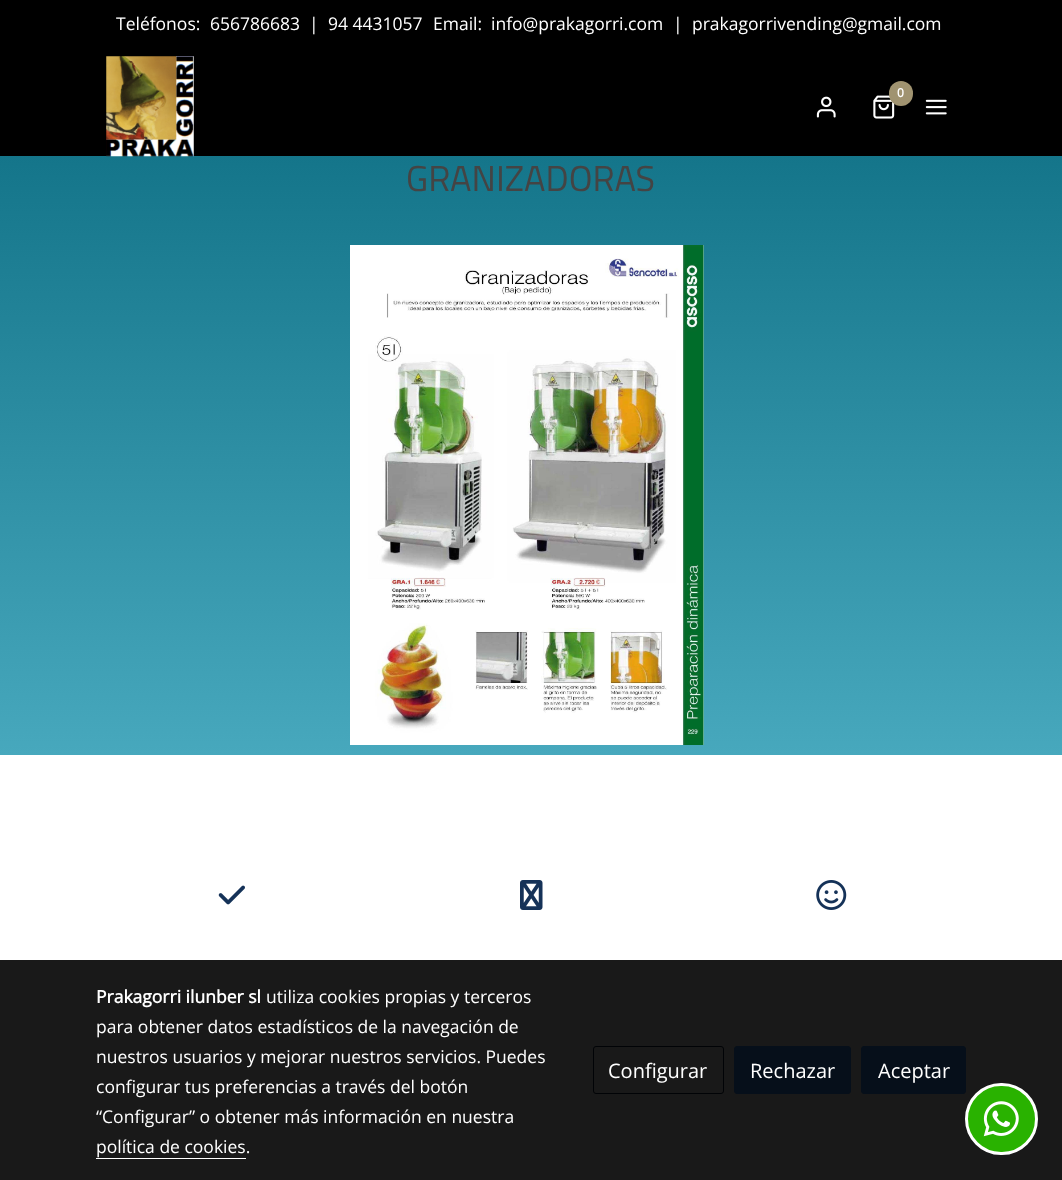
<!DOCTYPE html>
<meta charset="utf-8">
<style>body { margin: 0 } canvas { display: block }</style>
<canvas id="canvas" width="1062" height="1180"></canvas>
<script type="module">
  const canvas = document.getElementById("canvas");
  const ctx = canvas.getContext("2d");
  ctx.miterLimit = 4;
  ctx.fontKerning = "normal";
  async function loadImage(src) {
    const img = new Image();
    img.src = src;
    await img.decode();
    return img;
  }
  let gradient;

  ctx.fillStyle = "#ffffff";
  ctx.fillRect(0, 0, 1062, 1180);
  ctx.fillStyle = "#000000";
  ctx.fillRect(0, 0, 1062, 156);
  ctx.font = "17.5px Open Sans";
  ctx.fillStyle = "#ffffff";
  ctx.fillText("Teléfonos:", 116, 30);
  ctx.fillText("656786683", 210, 30);
  ctx.fillText("|", 309, 30);
  ctx.fillText("94 4431057", 328, 30);
  ctx.fillText("Email:", 433, 30);
  ctx.fillText("info@prakagorri.com", 491, 30);
  ctx.fillText("|", 673, 30);
  ctx.fillText("prakagorrivending@gmail.com", 692, 30);
  gradient = ctx.createLinearGradient(531, 755, 531, 0);
  gradient.addColorStop(0, "#47a8bd");
  gradient.addColorStop(1, "#07687d");
  ctx.fillStyle = gradient;
  ctx.fillRect(0, 156, 1062, 599);
  ctx.drawImage(await loadImage("img1.png"), 106, 56, 88, 101);
  ctx.drawImage(await loadImage("img2.png"), 873, 95, 22, 24);
  ctx.fillStyle = "#a09370";
  ctx.beginPath();
  ctx.roundRect(889, 81, 24, 25, 12);
  ctx.fill();
  ctx.font = "bold 12px Open Sans";
  ctx.fillStyle = "#ffffff";
  ctx.fillText("0", 897, 97);
  ctx.drawImage(await loadImage("img3.png"), 816, 96, 20, 22);
  ctx.drawImage(await loadImage("img4.png"), 925, 99, 22, 16);
  ctx.font = "36px Titillium Web";
  ctx.fillStyle = "#444444";
  ctx.fillText("GRANIZADORAS", 406, 191);
  ctx.drawImage(await loadImage("img5.png"), 350, 245, 354, 500);
  ctx.drawImage(await loadImage("img6.png"), 218, 885, 27, 20);
  ctx.drawImage(await loadImage("img7.png"), 520, 880, 23, 30);
  ctx.drawImage(await loadImage("img8.png"), 816, 880, 31, 30);
  ctx.fillStyle = "rgba(0, 0, 0, 0.9)";
  ctx.fillRect(0, 960, 1062, 220);
  ctx.font = "bold 17.5px Open Sans";
  ctx.fillStyle = "#ffffff";
  ctx.fillText("Prakagorri ilunber sl", 96, 1003);
  ctx.font = "17.5px Open Sans";
  ctx.fillText("utiliza cookies propias y terceros", 266, 1003);
  ctx.fillText("para obtener datos estadísticos de la navegación de", 96, 1033);
  ctx.fillText("nuestros usuarios y mejorar nuestros servicios. Puedes", 96, 1063);
  ctx.fillText("configurar tus preferencias a través del botón", 96, 1093);
  ctx.fillText("“Configurar” o obtener más información en nuestra", 96, 1123);
  ctx.fillText("política de cookies.", 96, 1153);
  ctx.fillRect(96, 1158, 150, 1);
  ctx.beginPath();
  ctx.roundRect(593.5, 1046.5, 130, 47, 2.5);
  ctx.strokeStyle = "#010306";
  ctx.stroke();
  ctx.font = "20px Open Sans";
  ctx.fillText("Configurar", 608, 1078);
  ctx.fillStyle = "#060f1a";
  ctx.beginPath();
  ctx.roundRect(734.5, 1046.5, 116, 47, 2.5);
  ctx.fill();
  ctx.strokeStyle = "#060f1a";
  ctx.stroke();
  ctx.fillStyle = "#ffffff";
  ctx.fillText("Rechazar", 750, 1078);
  ctx.fillStyle = "#060f1a";
  ctx.beginPath();
  ctx.roundRect(861.5, 1046.5, 104, 47, 2.5);
  ctx.fill();
  ctx.stroke();
  ctx.fillStyle = "#ffffff";
  ctx.fillText("Aceptar", 878, 1078);
  ctx.fillStyle = "#29b200";
  ctx.beginPath();
  ctx.roundRect(966.5, 1084.5, 70, 69, 34.5);
  ctx.fill();
  ctx.strokeStyle = "#ffffff";
  ctx.lineWidth = 3;
  ctx.stroke();
  ctx.drawImage(await loadImage("img9.png"), 983, 1101, 36, 36);
</script>
